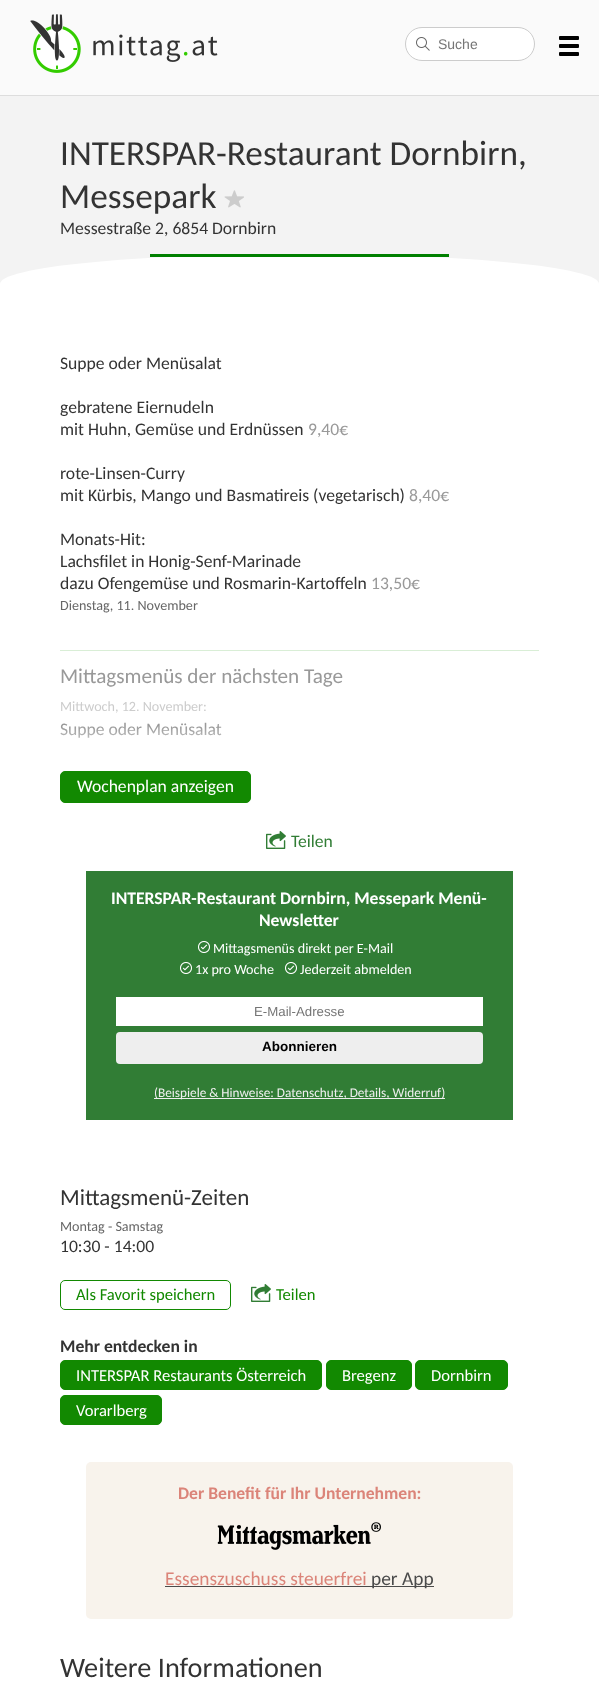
<!DOCTYPE html>
<meta charset="utf-8">
<style>body { margin: 0 } canvas { display: block }</style>
<canvas id="canvas" width="599" height="1689"></canvas>
<script type="module">
  const canvas = document.getElementById("canvas");
  const ctx = canvas.getContext("2d");
  ctx.miterLimit = 4;
  ctx.fontKerning = "normal";
  async function loadImage(src) {
    const img = new Image();
    img.src = src;
    await img.decode();
    return img;
  }
  let gradient;

  ctx.fillStyle = "#f3f3f3";
  ctx.fillRect(0, 0, 599, 1689);
  ctx.fillStyle = "#fafafa";
  ctx.fillRect(0, 0, 599, 95);
  ctx.fillStyle = "#dddddd";
  ctx.fillRect(0, 95, 599, 1);
  ctx.drawImage(await loadImage("img1.png"), 30, 14, 188, 59);
  ctx.fillStyle = "#ffffff";
  ctx.beginPath();
  ctx.roundRect(405.5, 27.5, 129, 33, 16.5);
  ctx.fill();
  ctx.strokeStyle = "#cccccc";
  ctx.stroke();
  ctx.drawImage(await loadImage("img2.png"), 416, 37, 14, 14);
  ctx.font = "14px Liberation Sans";
  ctx.fillStyle = "#757575";
  ctx.fillText("Suche", 438, 49);
  ctx.fillStyle = "#000000";
  ctx.beginPath();
  ctx.roundRect(559, 44, 20, 4, 1);
  ctx.fill();
  ctx.beginPath();
  ctx.roundRect(559, 36, 20, 4, 1);
  ctx.fill();
  ctx.beginPath();
  ctx.roundRect(559, 52, 20, 4, 1);
  ctx.fill();
  ctx.font = "35.25px Carlito";
  ctx.fillStyle = "#333333";
  ctx.fillText("INTERSPAR-Restaurant Dornbirn,", 60, 165);
  ctx.fillText("Messepark", 60, 208);
  ctx.drawImage(await loadImage("img3.png"), 224, 190, 20, 18);
  ctx.font = "17.6px Carlito";
  ctx.fillText("Messestraße 2, 6854 Dornbirn", 60, 234);
  ctx.fillStyle = "#ffffff";
  ctx.beginPath();
  ctx.moveTo(300, 254);
  ctx.bezierCurveTo(465, 254, 599, 267, 599, 284);
  ctx.lineTo(599, 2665);
  ctx.lineTo(0, 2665);
  ctx.lineTo(0, 284);
  ctx.bezierCurveTo(0, 267, 134, 254, 300, 254);
  ctx.closePath();
  ctx.fill();
  ctx.fillStyle = "#008000";
  ctx.fillRect(150, 254, 299, 3);
  ctx.fillStyle = "#333333";
  ctx.fillText("Suppe oder Menüsalat", 60, 369);
  ctx.fillText("gebratene Eiernudeln", 60, 413);
  ctx.fillText("mit Huhn, Gemüse und Erdnüssen", 60, 435);
  ctx.fillStyle = "#999999";
  ctx.fillText("9,40€", 308, 435);
  ctx.fillStyle = "#333333";
  ctx.fillText("rote-Linsen-Curry", 60, 479);
  ctx.fillText("mit Kürbis, Mango und Basmatireis (vegetarisch)", 60, 501);
  ctx.fillStyle = "#999999";
  ctx.fillText("8,40€", 409, 501);
  ctx.fillStyle = "#333333";
  ctx.fillText("Monats-Hit:", 60, 545);
  ctx.fillText("Lachsfilet in Honig-Senf-Marinade", 60, 567);
  ctx.fillText("dazu Ofengemüse und Rosmarin-Kartoffeln", 60, 589);
  ctx.fillStyle = "#999999";
  ctx.fillText("13,50€", 371, 589);
  ctx.font = "14.1px Carlito";
  ctx.fillStyle = "#666666";
  ctx.fillText("Dienstag, 11. November", 60, 610);
  ctx.fillStyle = "#d9eed6";
  ctx.fillRect(60, 650, 479, 1);
  ctx.font = "21.2px Carlito";
  ctx.fillStyle = "#999999";
  ctx.fillText("Mittagsmenüs der nächsten Tage", 60, 683);
  ctx.font = "14.1px Carlito";
  ctx.fillStyle = "#cccccc";
  ctx.fillText("Mittwoch, 12. November:", 60, 711);
  ctx.font = "17.6px Carlito";
  ctx.fillStyle = "#999999";
  ctx.fillText("Suppe oder Menüsalat", 60, 735);
  gradient = ctx.createLinearGradient(300, 771, 300, 718);
  gradient.addColorStop(0.15, "#ffffff");
  gradient.addColorStop(0.85, "rgba(255, 255, 255, 0)");
  ctx.fillStyle = gradient;
  ctx.fillRect(60, 727, 162, 11);
  ctx.fillStyle = "#128901";
  ctx.beginPath();
  ctx.roundRect(60.5, 771.5, 190, 31, 4.5);
  ctx.fill();
  ctx.strokeStyle = "#128901";
  ctx.stroke();
  ctx.fillStyle = "#ffffff";
  ctx.fillText("Wochenplan anzeigen", 77, 792);
  ctx.drawImage(await loadImage("img4.png"), 266, 831, 20, 18);
  ctx.fillStyle = "#317d35";
  ctx.fillText("Teilen", 291, 847);
  ctx.fillRect(86, 871, 427, 249);
  ctx.font = "bold 17.6px Carlito";
  ctx.fillStyle = "#ffffff";
  ctx.fillText("INTERSPAR-Restaurant Dornbirn, Messepark Menü-", 111, 904);
  ctx.fillText("Newsletter", 259, 926);
  ctx.drawImage(await loadImage("img5.png"), 198, 941, 12, 12);
  ctx.font = "14.1px Carlito";
  ctx.fillText("Mittagsmenüs direkt per E-Mail", 213, 953);
  ctx.drawImage(await loadImage("img5.png"), 180, 962, 12, 12);
  ctx.fillText("1x pro Woche", 195, 974);
  ctx.drawImage(await loadImage("img5.png"), 285, 962, 12, 12);
  ctx.fillText("Jederzeit abmelden", 300, 974);
  ctx.fillRect(116, 997, 367, 29);
  ctx.font = "13.25px Liberation Sans";
  ctx.fillStyle = "#757575";
  ctx.fillText("E-Mail-Adresse", 254, 1016);
  ctx.fillStyle = "#eeeeee";
  ctx.beginPath();
  ctx.roundRect(116, 1032, 367, 32, 4);
  ctx.fill();
  ctx.font = "bold 13.5px Liberation Sans";
  ctx.fillStyle = "#000000";
  ctx.fillText("Abonnieren", 262, 1051);
  ctx.fillStyle = "#efefef";
  ctx.fillRect(154, 1098, 291, 1);
  ctx.font = "13.25px Carlito";
  ctx.fillText("(Beispiele & Hinweise: Datenschutz, Details, Widerruf)", 154, 1097);
  ctx.font = "23px Carlito";
  ctx.fillStyle = "#333333";
  ctx.fillText("Mittagsmenü-Zeiten", 60, 1205);
  ctx.font = "14.1px Carlito";
  ctx.fillStyle = "#666666";
  ctx.fillText("Montag - Samstag", 60, 1231);
  ctx.font = "17.6px Carlito";
  ctx.fillStyle = "#333333";
  ctx.fillText("10:30 - 14:00", 60, 1252);
  ctx.beginPath();
  ctx.roundRect(60.5, 1280.5, 170, 29, 4.5);
  ctx.stroke();
  ctx.font = "16.6px Carlito";
  ctx.fillStyle = "#128901";
  ctx.fillText("Als Favorit speichern", 76, 1300);
  ctx.drawImage(await loadImage("img4.png"), 251, 1284, 20, 18);
  ctx.fillText("Teilen", 276, 1300);
  ctx.font = "bold 17.6px Carlito";
  ctx.fillStyle = "#333333";
  ctx.fillText("Mehr entdecken in", 60, 1352);
  ctx.fillStyle = "#128901";
  ctx.beginPath();
  ctx.roundRect(60.5, 1360.5, 261, 29, 4.5);
  ctx.fill();
  ctx.stroke();
  ctx.font = "16.6px Carlito";
  ctx.fillStyle = "#ffffff";
  ctx.fillText("INTERSPAR Restaurants Österreich", 76, 1381);
  ctx.fillStyle = "#128901";
  ctx.beginPath();
  ctx.roundRect(326.5, 1360.5, 85, 29, 4.5);
  ctx.fill();
  ctx.stroke();
  ctx.fillStyle = "#ffffff";
  ctx.fillText("Bregenz", 342, 1381);
  ctx.fillStyle = "#128901";
  ctx.beginPath();
  ctx.roundRect(415.5, 1360.5, 92, 29, 4.5);
  ctx.fill();
  ctx.stroke();
  ctx.fillStyle = "#ffffff";
  ctx.fillText("Dornbirn", 431, 1381);
  ctx.fillStyle = "#128901";
  ctx.beginPath();
  ctx.roundRect(60.5, 1395.5, 101, 29, 4.5);
  ctx.fill();
  ctx.stroke();
  ctx.fillStyle = "#ffffff";
  ctx.fillText("Vorarlberg", 76, 1416);
  ctx.fillStyle = "#f8f3ec";
  ctx.beginPath();
  ctx.roundRect(86, 1462, 427, 157, 5);
  ctx.fill();
  ctx.font = "bold 17.6px Carlito";
  ctx.fillStyle = "#db8479";
  ctx.fillText("Der Benefit für Ihr Unternehmen:", 178, 1499);
  ctx.drawImage(await loadImage("img6.png"), 217, 1522, 164, 28);
  ctx.font = "19.4px Carlito";
  ctx.fillText("Essenszuschuss steuerfrei", 165, 1585);
  ctx.fillStyle = "#4b4b4b";
  ctx.fillRect(165, 1586, 269, 1);
  ctx.fillText("per App", 371, 1585);
  ctx.font = "28.25px Carlito";
  ctx.fillStyle = "#333333";
  ctx.fillText("Weitere Informationen", 60, 1677);
</script>
